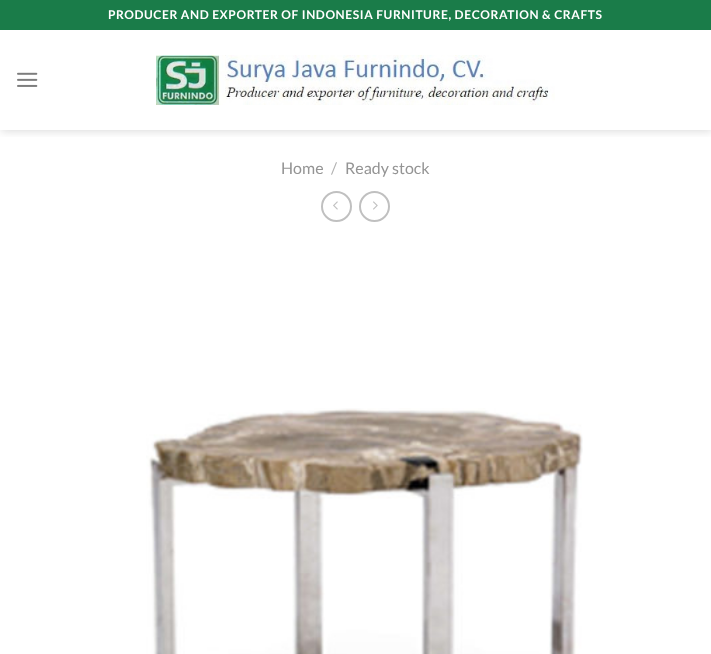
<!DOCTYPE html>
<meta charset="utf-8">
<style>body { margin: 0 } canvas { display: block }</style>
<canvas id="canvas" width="711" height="654"></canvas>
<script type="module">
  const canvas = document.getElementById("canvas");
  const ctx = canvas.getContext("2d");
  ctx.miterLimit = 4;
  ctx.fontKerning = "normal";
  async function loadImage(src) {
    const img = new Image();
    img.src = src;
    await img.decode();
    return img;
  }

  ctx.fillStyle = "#ffffff";
  ctx.fillRect(0, 0, 711, 654);
  ctx.save();
  ctx.beginPath();
  ctx.rect(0, 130, 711, 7);
  ctx.clip();
  ctx.fillStyle = "rgba(0, 0, 0, 0.15)";
  ctx.filter = "blur(5px)";
  ctx.beginPath();
  ctx.rect(1, 1, 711, 130);
  ctx.fill();
  ctx.filter = "none";
  ctx.restore();
  ctx.fillStyle = "#1a7c49";
  ctx.fillRect(0, 0, 711, 30);
  ctx.letterSpacing = "0.6px";
  ctx.font = "bold 12px Lato";
  ctx.fillStyle = "#ffffff";
  ctx.fillText("PRODUCER AND EXPORTER OF INDONESIA FURNITURE, DECORATION & CRAFTS", 108, 19);
  ctx.drawImage(await loadImage("img1.png"), 17, 72, 21, 15);
  ctx.drawImage(await loadImage("img2.png"), 156, 55, 399, 50);
  ctx.letterSpacing = "0px";
  ctx.font = "16px Lato";
  ctx.fillStyle = "#949494";
  ctx.fillText("Home", 281, 174);
  ctx.fillStyle = "#b2b2b2";
  ctx.fillText("/", 331, 174);
  ctx.fillStyle = "#949494";
  ctx.fillText("Ready stock", 345, 174);
  ctx.beginPath();
  ctx.arc(336.5, 206.5, 14.5, 0, Math.PI * 2);
  ctx.strokeStyle = "#c0c0c0";
  ctx.lineWidth = 2;
  ctx.stroke();
  ctx.drawImage(await loadImage("img3.png"), 333, 201, 5, 9);
  ctx.beginPath();
  ctx.arc(374.5, 206.5, 14.5, 0, Math.PI * 2);
  ctx.stroke();
  ctx.drawImage(await loadImage("img4.png"), 373, 201, 5, 9);
  ctx.drawImage(await loadImage("img5.png"), 146, 408, 437, 246);
</script>
